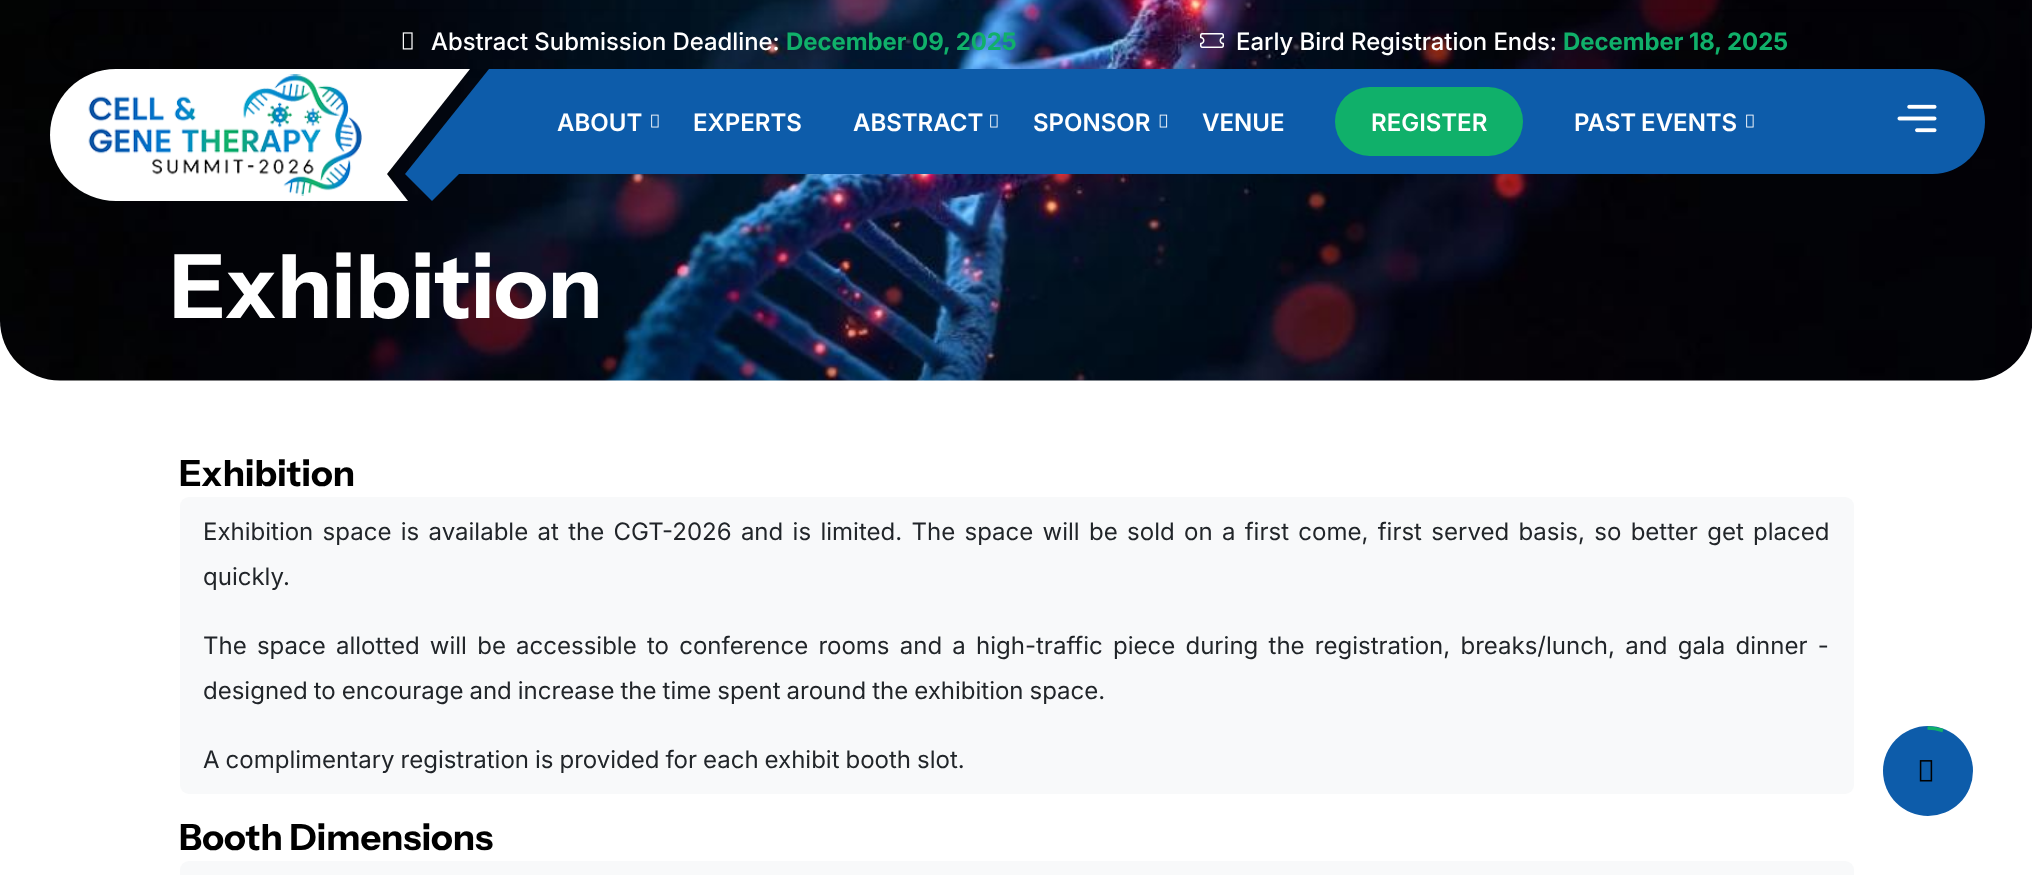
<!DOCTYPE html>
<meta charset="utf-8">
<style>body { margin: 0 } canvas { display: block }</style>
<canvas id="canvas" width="2032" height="875"></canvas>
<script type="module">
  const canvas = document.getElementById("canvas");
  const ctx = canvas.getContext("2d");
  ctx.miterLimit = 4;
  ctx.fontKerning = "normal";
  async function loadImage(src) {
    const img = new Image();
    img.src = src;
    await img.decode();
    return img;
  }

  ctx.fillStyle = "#ffffff";
  ctx.fillRect(0, 0, 2032, 875);
  ctx.drawImage(await loadImage("img7.png"), 0, 0, 2032, 381);
  ctx.save();
  ctx.beginPath();
  ctx.moveTo(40, 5);
  ctx.lineTo(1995, 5);
  ctx.lineTo(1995, 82);
  ctx.lineTo(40, 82);
  ctx.closePath();
  ctx.moveTo(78.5, 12);
  ctx.lineTo(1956.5, 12);
  ctx.bezierCurveTo(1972, 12, 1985, 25, 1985, 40.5);
  ctx.bezierCurveTo(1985, 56, 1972, 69, 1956.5, 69);
  ctx.lineTo(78.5, 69);
  ctx.bezierCurveTo(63, 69, 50, 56, 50, 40.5);
  ctx.bezierCurveTo(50, 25, 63, 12, 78.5, 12);
  ctx.closePath();
  ctx.clip("evenodd");
  ctx.fillStyle = "rgba(0, 0, 0, 0.07)";
  ctx.filter = "blur(3px)";
  ctx.beginPath();
  ctx.roundRect(50, 15, 1935, 57, 28.5);
  ctx.fill();
  ctx.filter = "none";
  ctx.restore();
  ctx.drawImage(await loadImage("img1.png"), 402, 32, 11, 18);
  ctx.font = "500 24px Inter";
  ctx.fillText("Abstract Submission Deadline:", 431, 50);
  ctx.font = "bold 24px Inter";
  ctx.fillStyle = "#10b06a";
  ctx.fillText("December 09, 2025", 786, 50);
  ctx.drawImage(await loadImage("img2.png"), 1200, 33, 24, 15);
  ctx.font = "500 24px Inter";
  ctx.fillStyle = "#ffffff";
  ctx.fillText("Early Bird Registration Ends:", 1236, 50);
  ctx.font = "bold 24px Inter";
  ctx.fillStyle = "#10b06a";
  ctx.fillText("December 18, 2025", 1563, 50);
  ctx.fillStyle = "#ffffff";
  ctx.beginPath();
  ctx.roundRect(50, 69, 337, 132, [66, 0, 0, 66]);
  ctx.fill();
  ctx.drawImage(await loadImage("img3.png"), 88, 74, 274, 122);
  ctx.beginPath();
  ctx.moveTo(387, 69);
  ctx.lineTo(470, 69);
  ctx.lineTo(387, 174);
  ctx.closePath();
  ctx.fill();
  ctx.beginPath();
  ctx.moveTo(408, 201);
  ctx.lineTo(387, 201);
  ctx.lineTo(387, 174);
  ctx.closePath();
  ctx.fill();
  ctx.fillStyle = "#0d5caa";
  ctx.beginPath();
  ctx.roundRect(489, 69, 1496, 105, [0, 52.5, 52.5, 0]);
  ctx.fill();
  ctx.beginPath();
  ctx.moveTo(489, 174);
  ctx.lineTo(405, 174);
  ctx.lineTo(489, 69);
  ctx.closePath();
  ctx.fill();
  ctx.font = "600 24px Inter";
  ctx.fillStyle = "#ffffff";
  ctx.fillText("ABOUT", 557, 131);
  ctx.drawImage(await loadImage("img4.png"), 651, 114, 8, 14);
  ctx.fillText("EXPERTS", 693, 131);
  ctx.fillText("ABSTRACT", 853, 131);
  ctx.drawImage(await loadImage("img4.png"), 990, 114, 8, 14);
  ctx.fillText("SPONSOR", 1033, 131);
  ctx.drawImage(await loadImage("img5.png"), 1159, 114, 9, 14);
  ctx.fillText("VENUE", 1202, 131);
  ctx.fillStyle = "#10b06a";
  ctx.beginPath();
  ctx.roundRect(1335, 87, 188, 69, 34.5);
  ctx.fill();
  ctx.fillStyle = "#ffffff";
  ctx.fillText("REGISTER", 1371, 131);
  ctx.wordSpacing = "-1px";
  ctx.fillText("PAST EVENTS", 1574, 131);
  ctx.drawImage(await loadImage("img4.png"), 1746, 114, 8, 14);
  ctx.fillStyle = "#0d5caa";
  ctx.beginPath();
  ctx.moveTo(405, 174);
  ctx.lineTo(459, 174);
  ctx.lineTo(432, 201);
  ctx.closePath();
  ctx.fill();
  ctx.drawImage(await loadImage("img6.png"), 1897, 104, 40, 29);
  ctx.wordSpacing = "0px";
  ctx.font = "bold 88.5px Instrument Sans";
  ctx.fillStyle = "#ffffff";
  ctx.fillText("Exhibition", 170, 318);
  ctx.font = "bold 36px Instrument Sans";
  ctx.fillStyle = "#000000";
  ctx.fillText("Exhibition", 179, 486);
  ctx.fillStyle = "#f8f9fa";
  ctx.beginPath();
  ctx.roundRect(180, 497, 1674, 114, [9, 9, 0, 0]);
  ctx.fill();
  ctx.wordSpacing = "2.6px";
  ctx.font = "24px Inter";
  ctx.fillStyle = "#212529";
  ctx.fillText("Exhibition space is available at the CGT-2026 and is limited. The space will be sold on a first come, first served basis, so better get placed", 203, 540);
  ctx.wordSpacing = "0px";
  ctx.fillText("quickly.", 203, 585);
  ctx.fillStyle = "#f8f9fa";
  ctx.fillRect(180, 611, 1674, 114);
  ctx.wordSpacing = "3.5px";
  ctx.fillStyle = "#212529";
  ctx.fillText("The space allotted will be accessible to conference rooms and a high-traffic piece during the registration, breaks/lunch, and gala dinner -", 203, 654);
  ctx.wordSpacing = "-0.75px";
  ctx.fillText("designed to encourage and increase the time spent around the exhibition space.", 203, 699);
  ctx.fillStyle = "#f8f9fa";
  ctx.beginPath();
  ctx.roundRect(180, 725, 1674, 69, [0, 0, 9, 9]);
  ctx.fill();
  ctx.fillStyle = "#212529";
  ctx.fillText("A complimentary registration is provided for each exhibit booth slot.", 203, 768);
  ctx.wordSpacing = "0px";
  ctx.font = "bold 36px Instrument Sans";
  ctx.fillStyle = "#000000";
  ctx.fillText("Booth Dimensions", 179, 850);
  ctx.fillStyle = "#f8f9fa";
  ctx.beginPath();
  ctx.roundRect(180, 861, 1674, 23, 9);
  ctx.fill();
  ctx.fillStyle = "#0d5caa";
  ctx.beginPath();
  ctx.arc(1928, 771, 45, 0, Math.PI * 2);
  ctx.fill();
  ctx.beginPath();
  ctx.moveTo(1927.5, 728);
  ctx.bezierCurveTo(1933, 728, 1938, 729, 1943, 730.5);
  ctx.strokeStyle = "#10b06a";
  ctx.lineWidth = 3.5;
  ctx.stroke();
  ctx.drawImage(await loadImage("img8.png"), 1919, 760, 14, 22);
</script>
